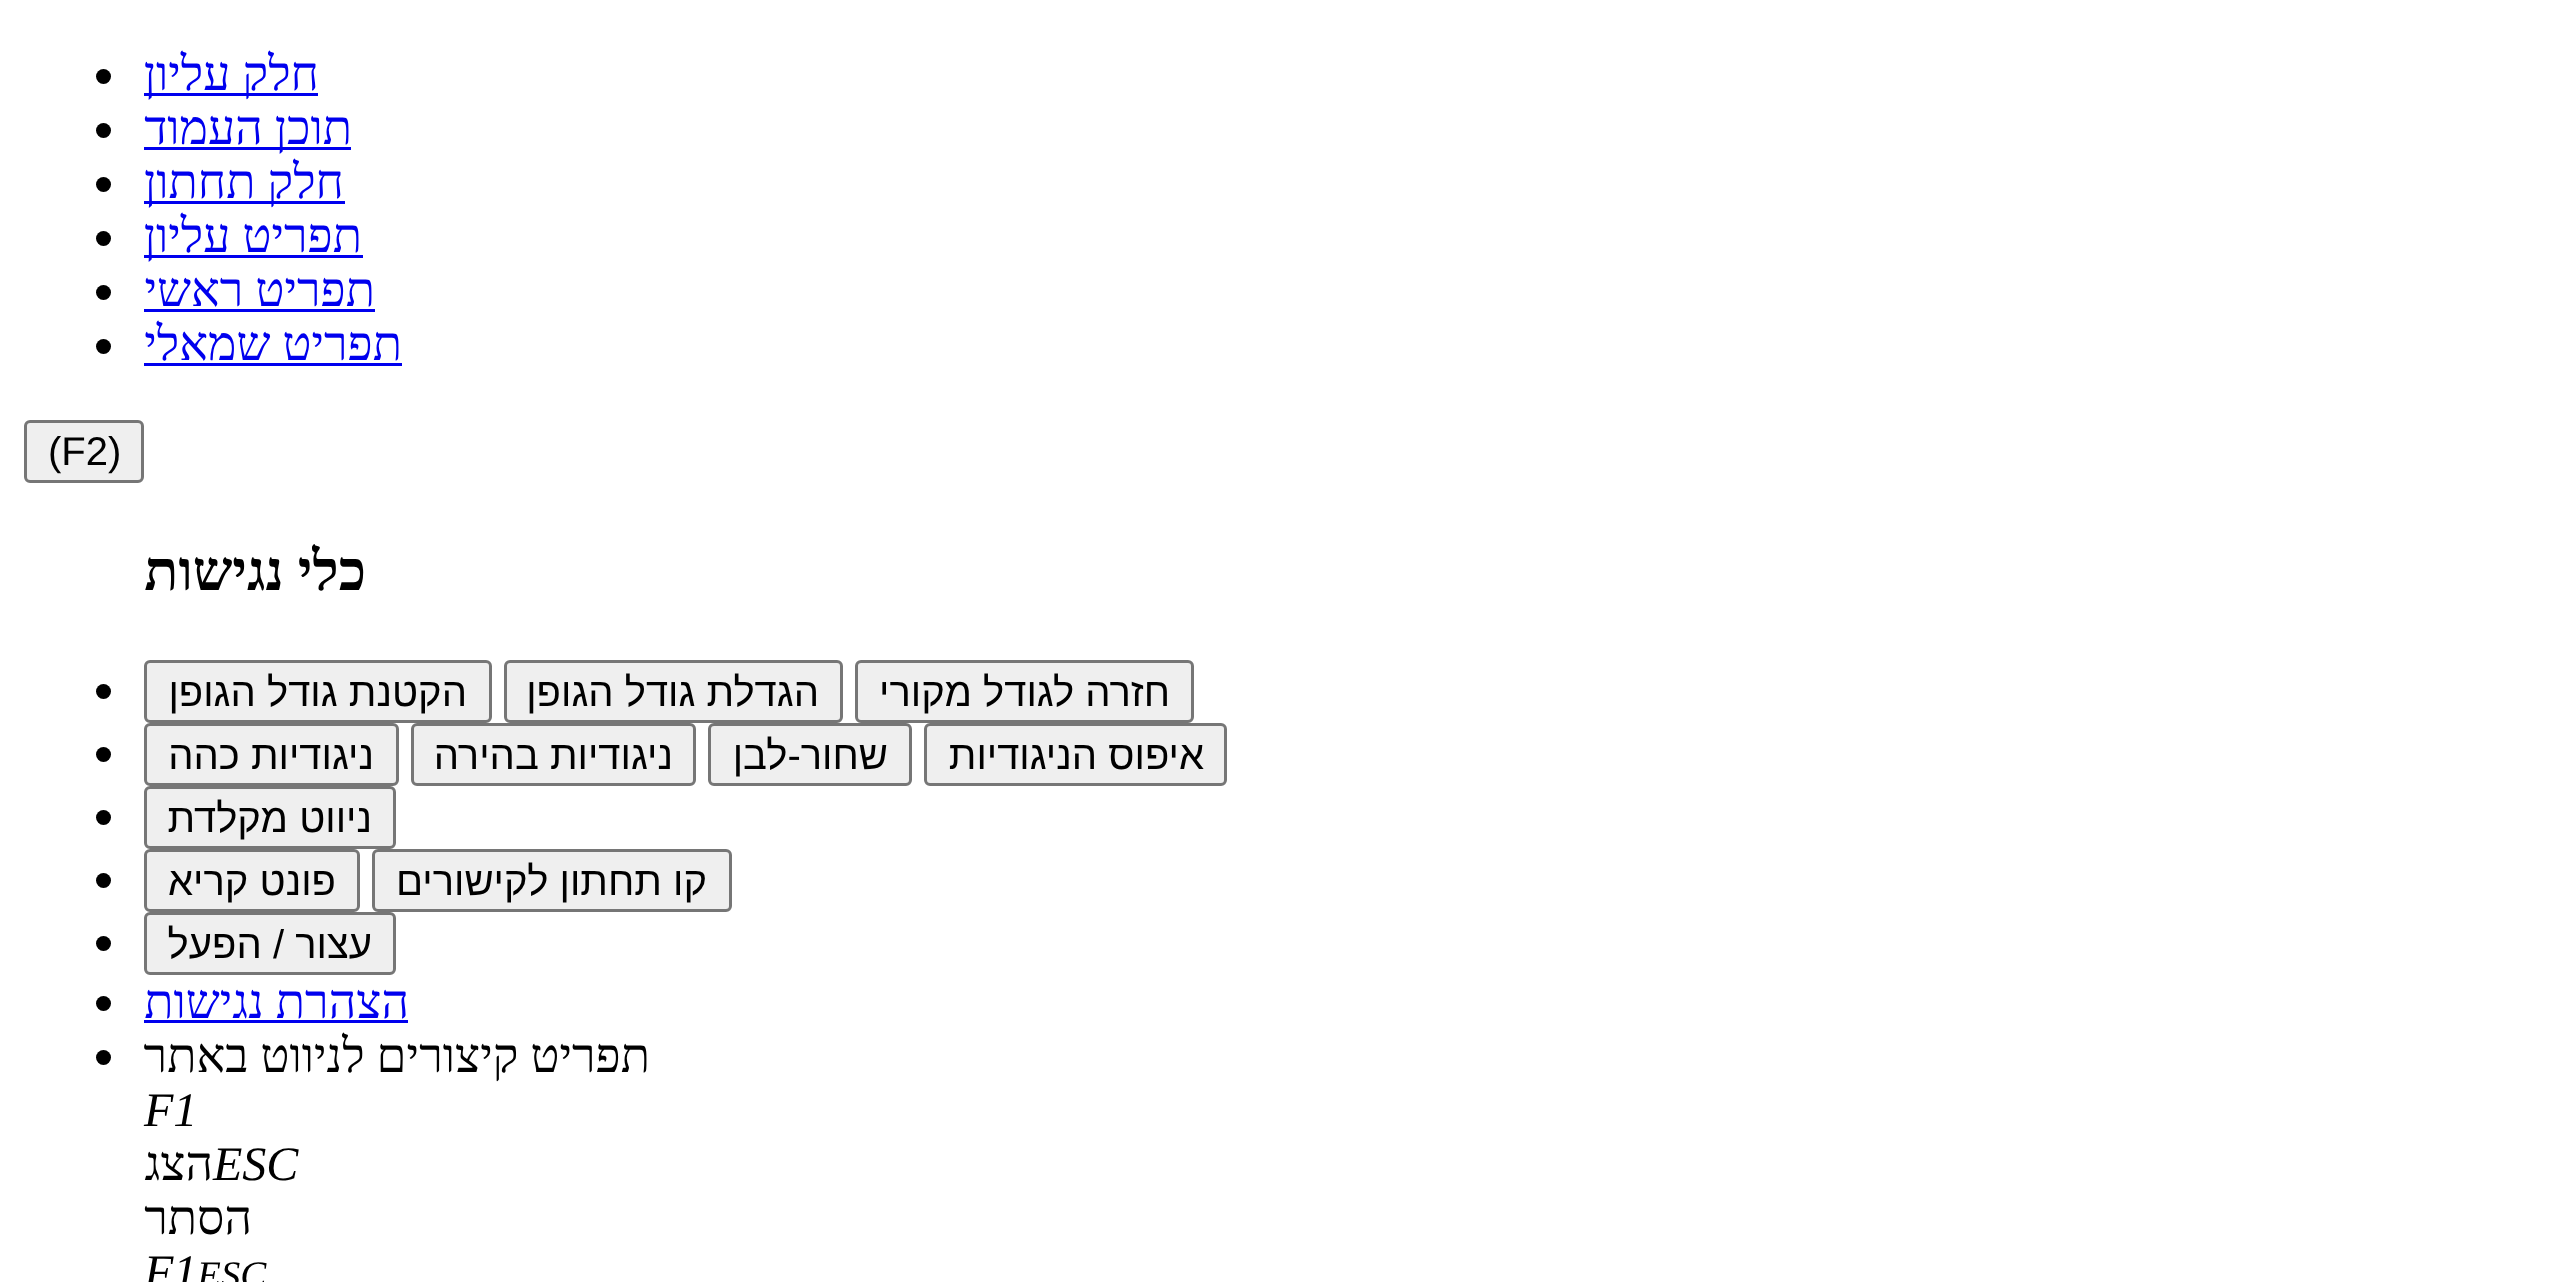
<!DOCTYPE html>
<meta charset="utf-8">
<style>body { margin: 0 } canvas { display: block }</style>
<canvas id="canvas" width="2555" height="1282"></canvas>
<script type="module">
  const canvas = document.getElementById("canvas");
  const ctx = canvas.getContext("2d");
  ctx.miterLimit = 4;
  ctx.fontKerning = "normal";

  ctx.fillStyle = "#ffffff";
  ctx.fillRect(0, 0, 2555, 1282);
  ctx.fillStyle = "#0000ee";
  ctx.fillRect(144, 93, 174, 3);
  ctx.direction = "rtl";
  ctx.font = "48px Liberation Serif";
  ctx.fillText("חלק עליון", 319, 90);
  ctx.fillStyle = "#000000";
  ctx.beginPath();
  ctx.arc(103.5, 76.5, 7.5, 0, Math.PI * 2);
  ctx.fill();
  ctx.fillStyle = "#0000ee";
  ctx.fillRect(144, 147, 207, 3);
  ctx.fillText("תוכן העמוד", 352, 144);
  ctx.fillStyle = "#000000";
  ctx.beginPath();
  ctx.arc(103.5, 130.5, 7.5, 0, Math.PI * 2);
  ctx.fill();
  ctx.fillStyle = "#0000ee";
  ctx.fillRect(144, 201, 201, 3);
  ctx.fillText("חלק תחתון", 344, 198);
  ctx.fillStyle = "#000000";
  ctx.beginPath();
  ctx.arc(103.5, 184.5, 7.5, 0, Math.PI * 2);
  ctx.fill();
  ctx.fillStyle = "#0000ee";
  ctx.fillRect(144, 255, 219, 3);
  ctx.fillText("תפריט עליון", 362, 252);
  ctx.fillStyle = "#000000";
  ctx.beginPath();
  ctx.arc(103.5, 238.5, 7.5, 0, Math.PI * 2);
  ctx.fill();
  ctx.fillStyle = "#0000ee";
  ctx.fillText("תפריט ראשי", 375, 306);
  ctx.fillRect(144, 309, 231, 3);
  ctx.fillStyle = "#000000";
  ctx.beginPath();
  ctx.arc(103.5, 292.5, 7.5, 0, Math.PI * 2);
  ctx.fill();
  ctx.fillStyle = "#0000ee";
  ctx.fillText("תפריט שמאלי", 402, 360);
  ctx.fillRect(144, 363, 258, 3);
  ctx.fillStyle = "#000000";
  ctx.beginPath();
  ctx.arc(103.5, 346.5, 7.5, 0, Math.PI * 2);
  ctx.fill();
  ctx.fillStyle = "#efefef";
  ctx.beginPath();
  ctx.roundRect(25.5, 421.5, 117, 60, 4.5);
  ctx.fill();
  ctx.strokeStyle = "#767676";
  ctx.lineWidth = 3;
  ctx.stroke();
  ctx.direction = "ltr";
  ctx.font = "40px Liberation Sans";
  ctx.fillStyle = "#000000";
  ctx.fillText("(F2)", 48, 465);
  ctx.direction = "rtl";
  ctx.font = "bold 56px Liberation Serif";
  ctx.fillText("כלי נגישות", 366, 590);
  ctx.fillStyle = "#efefef";
  ctx.beginPath();
  ctx.roundRect(856.5, 661.5, 336, 60, 4.5);
  ctx.fill();
  ctx.stroke();
  ctx.font = "40px Liberation Sans";
  ctx.fillStyle = "#000000";
  ctx.fillText("חזרה לגודל מקורי", 1170, 706);
  ctx.fillStyle = "#efefef";
  ctx.beginPath();
  ctx.roundRect(505.5, 661.5, 336, 60, 4.5);
  ctx.fill();
  ctx.stroke();
  ctx.fillStyle = "#000000";
  ctx.fillText("הגדלת גודל הגופן", 819, 706);
  ctx.fillStyle = "#efefef";
  ctx.beginPath();
  ctx.roundRect(145.5, 661.5, 345, 60, 4.5);
  ctx.fill();
  ctx.stroke();
  ctx.fillStyle = "#000000";
  ctx.fillText("הקטנת גודל הגופן", 467, 706);
  ctx.beginPath();
  ctx.arc(103.5, 691.5, 7.5, 0, Math.PI * 2);
  ctx.fill();
  ctx.fillStyle = "#efefef";
  ctx.beginPath();
  ctx.roundRect(925.5, 724.5, 300, 60, 4.5);
  ctx.fill();
  ctx.stroke();
  ctx.fillStyle = "#000000";
  ctx.fillText("איפוס הניגודיות", 1204, 769);
  ctx.fillStyle = "#efefef";
  ctx.beginPath();
  ctx.roundRect(709.5, 724.5, 201, 60, 4.5);
  ctx.fill();
  ctx.stroke();
  ctx.fillStyle = "#000000";
  ctx.fillText("שחור-לבן", 888, 769);
  ctx.fillStyle = "#efefef";
  ctx.beginPath();
  ctx.roundRect(412.5, 724.5, 282, 60, 4.5);
  ctx.fill();
  ctx.stroke();
  ctx.fillStyle = "#000000";
  ctx.fillText("ניגודיות בהירה", 673, 769);
  ctx.fillStyle = "#efefef";
  ctx.beginPath();
  ctx.roundRect(145.5, 724.5, 252, 60, 4.5);
  ctx.fill();
  ctx.stroke();
  ctx.fillStyle = "#000000";
  ctx.fillText("ניגודיות כהה", 374, 769);
  ctx.beginPath();
  ctx.arc(103.5, 754.5, 7.5, 0, Math.PI * 2);
  ctx.fill();
  ctx.fillStyle = "#efefef";
  ctx.beginPath();
  ctx.roundRect(145.5, 787.5, 249, 60, 4.5);
  ctx.fill();
  ctx.stroke();
  ctx.fillStyle = "#000000";
  ctx.fillText("ניווט מקלדת", 372, 832);
  ctx.beginPath();
  ctx.arc(103.5, 817.5, 7.5, 0, Math.PI * 2);
  ctx.fill();
  ctx.fillStyle = "#efefef";
  ctx.beginPath();
  ctx.roundRect(373.5, 850.5, 357, 60, 4.5);
  ctx.fill();
  ctx.stroke();
  ctx.fillStyle = "#000000";
  ctx.fillText("קו תחתון לקישורים", 707, 895);
  ctx.fillStyle = "#efefef";
  ctx.beginPath();
  ctx.roundRect(145.5, 850.5, 213, 60, 4.5);
  ctx.fill();
  ctx.stroke();
  ctx.fillStyle = "#000000";
  ctx.fillText("פונט קריא", 336, 895);
  ctx.beginPath();
  ctx.arc(103.5, 880.5, 7.5, 0, Math.PI * 2);
  ctx.fill();
  ctx.fillStyle = "#efefef";
  ctx.beginPath();
  ctx.roundRect(145.5, 913.5, 249, 60, 4.5);
  ctx.fill();
  ctx.stroke();
  ctx.fillStyle = "#000000";
  ctx.fillText("עצור / הפעל", 372, 958);
  ctx.beginPath();
  ctx.arc(103.5, 943.5, 7.5, 0, Math.PI * 2);
  ctx.fill();
  ctx.font = "48px Liberation Serif";
  ctx.fillStyle = "#0000ee";
  ctx.fillText("הצהרת נגישות", 409, 1018);
  ctx.fillRect(144, 1020, 264, 3);
  ctx.fillStyle = "#000000";
  ctx.beginPath();
  ctx.arc(103.5, 1003.5, 7.5, 0, Math.PI * 2);
  ctx.fill();
  ctx.fillText("תפריט קיצורים לניווט באתר", 650, 1072);
  ctx.beginPath();
  ctx.arc(103.5, 1057.5, 7.5, 0, Math.PI * 2);
  ctx.fill();
  ctx.direction = "ltr";
  ctx.font = "italic 48px Liberation Serif";
  ctx.fillText("F1", 144, 1126);
  ctx.fillText("ESC", 213, 1180);
  ctx.direction = "rtl";
  ctx.font = "48px Liberation Serif";
  ctx.fillText("הצג", 213, 1180);
  ctx.fillText("הסתר", 252, 1234);
  ctx.direction = "ltr";
  ctx.font = "italic 39px Liberation Serif";
  ctx.fillText("ESC", 197, 1288);
  ctx.font = "italic 48px Liberation Serif";
  ctx.fillText("F1", 144, 1288);
</script>
